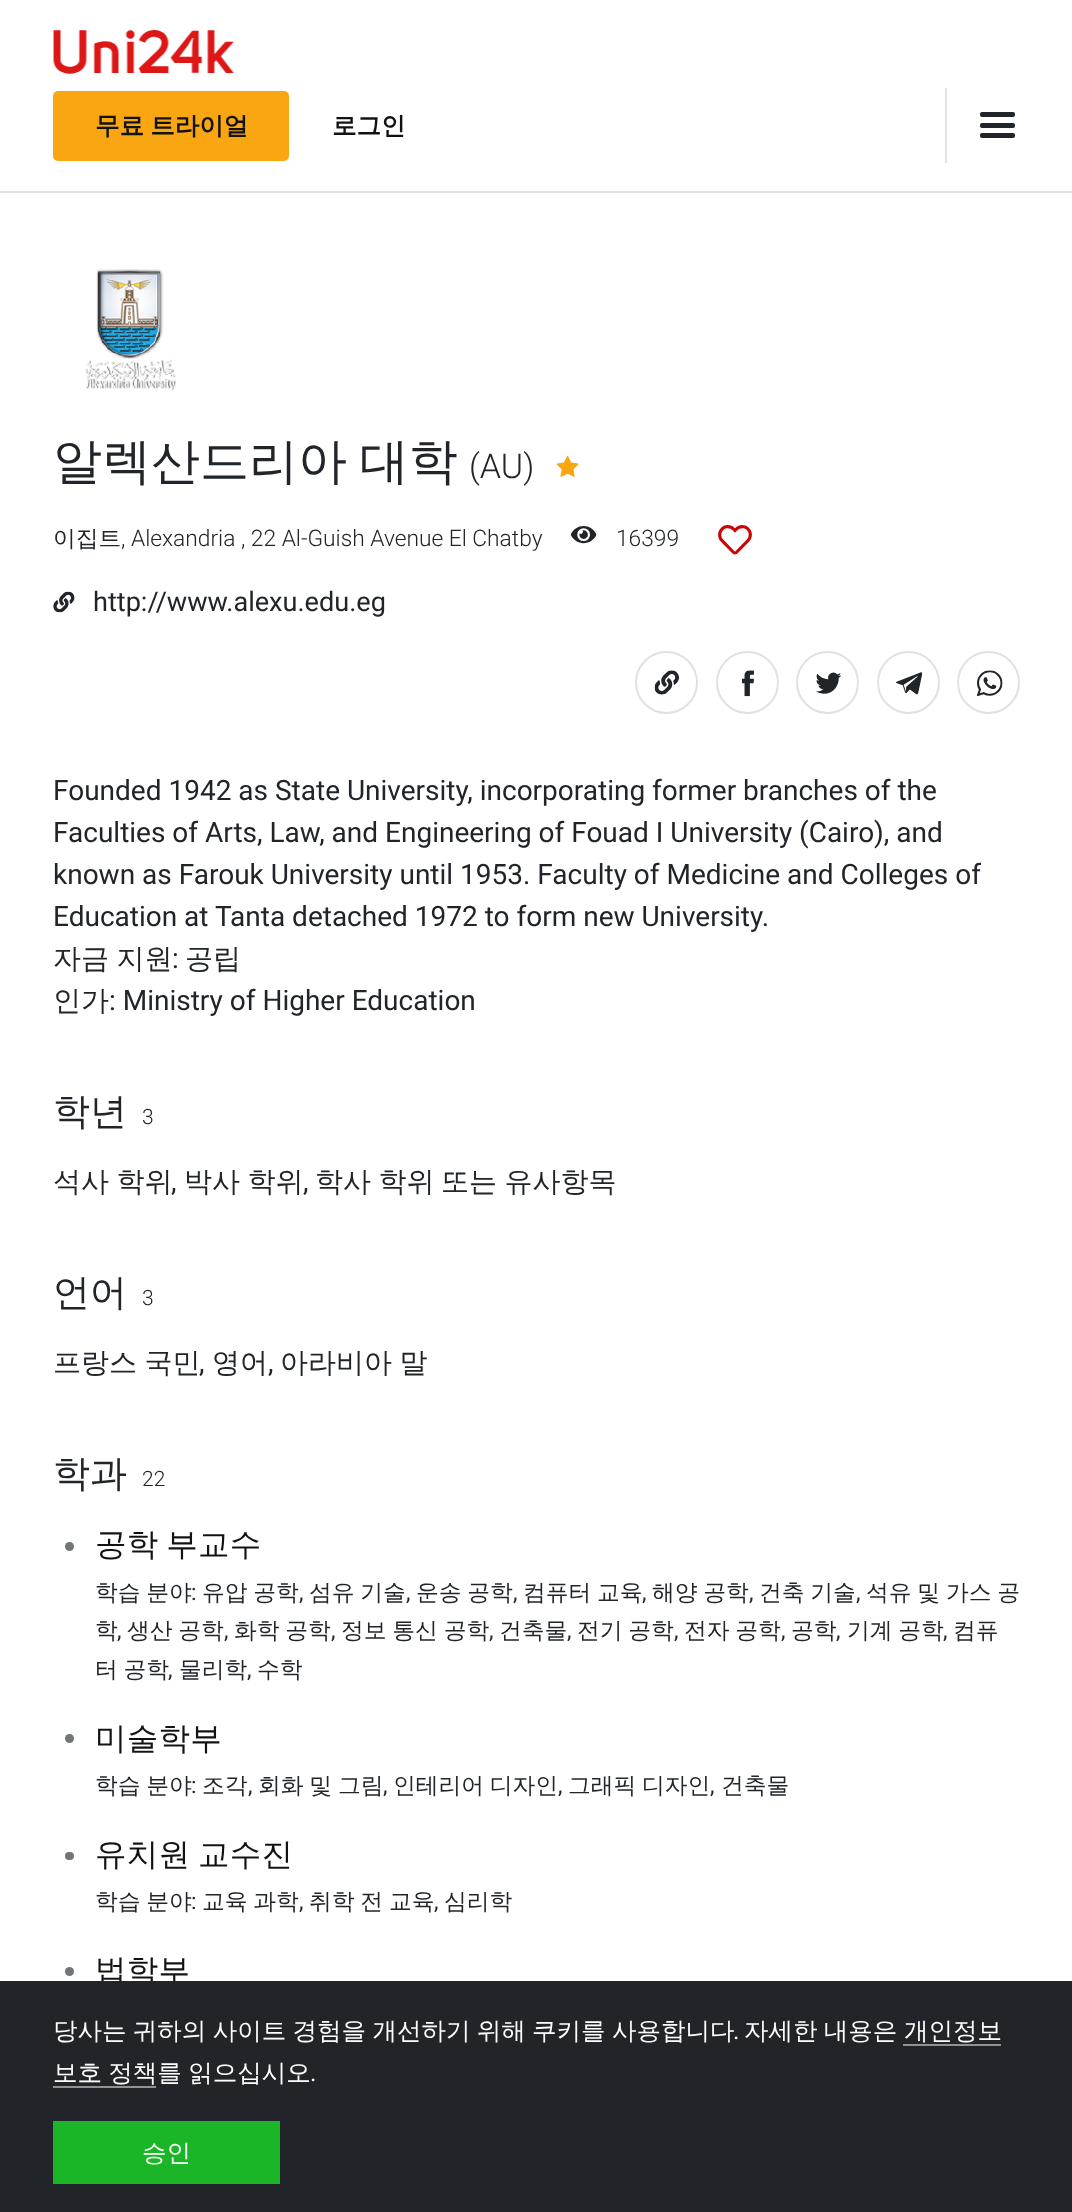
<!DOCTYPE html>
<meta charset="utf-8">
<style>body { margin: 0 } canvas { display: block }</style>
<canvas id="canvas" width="1072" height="2212"></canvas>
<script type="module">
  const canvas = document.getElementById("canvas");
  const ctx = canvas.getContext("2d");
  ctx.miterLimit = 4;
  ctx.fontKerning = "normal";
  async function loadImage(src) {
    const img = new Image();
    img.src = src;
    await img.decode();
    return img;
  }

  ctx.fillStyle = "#ffffff";
  ctx.fillRect(0, 0, 1072, 2212);
  ctx.fillStyle = "#dee2e6";
  ctx.fillRect(0, 191, 1072, 2);
  ctx.drawImage(await loadImage("img1.png"), 53, 30, 181, 44);
  ctx.fillStyle = "#faa613";
  ctx.beginPath();
  ctx.roundRect(53, 91, 236, 70, 5);
  ctx.fill();
  ctx.wordSpacing = "-1px";
  ctx.font = "bold 24.5px WenQuanYi Zen Hei";
  ctx.fillStyle = "#111213";
  ctx.fillText("무료 트라이얼", 95, 134);
  ctx.wordSpacing = "0px";
  ctx.fillText("로그인", 332, 134);
  ctx.fillStyle = "#dee2e6";
  ctx.fillRect(945, 88, 2, 75);
  ctx.fillStyle = "#212529";
  ctx.beginPath();
  ctx.roundRect(980, 123, 35, 5, 2);
  ctx.fill();
  ctx.beginPath();
  ctx.roundRect(980, 112, 35, 5, 2);
  ctx.fill();
  ctx.beginPath();
  ctx.roundRect(980, 133, 35, 5, 2);
  ctx.fill();
  ctx.drawImage(await loadImage("img2.png"), 85, 269, 91, 122);
  ctx.wordSpacing = "-2px";
  ctx.font = "500 49px WenQuanYi Zen Hei";
  ctx.fillText("알렉산드리아 대학", 53, 478);
  ctx.wordSpacing = "0px";
  ctx.font = "300 34px Roboto";
  ctx.fillText("(AU)", 469, 478);
  ctx.drawImage(await loadImage("img3.png"), 556, 455, 23, 22);
  ctx.font = "500 22.75px WenQuanYi Zen Hei";
  ctx.fillText("이집트", 53, 546);
  ctx.font = "300 22.75px Roboto";
  ctx.fillText(", Alexandria , 22 Al-Guish Avenue El Chatby", 121, 546);
  ctx.drawImage(await loadImage("img4.png"), 570, 526, 27, 18);
  ctx.fillText("16399", 616, 546);
  ctx.drawImage(await loadImage("img5.png"), 718, 525, 34, 30);
  ctx.drawImage(await loadImage("img6.png"), 53, 591, 22, 22);
  ctx.font = "27.1px Roboto";
  ctx.fillText("http://www.alexu.edu.eg", 93, 611);
  ctx.beginPath();
  ctx.arc(666.5, 682.5, 30.5, 0, Math.PI * 2);
  ctx.strokeStyle = "#dee2e6";
  ctx.lineWidth = 2;
  ctx.stroke();
  ctx.drawImage(await loadImage("img7.png"), 654, 670, 25, 25);
  ctx.beginPath();
  ctx.arc(747.5, 682.5, 30.5, 0, Math.PI * 2);
  ctx.stroke();
  ctx.drawImage(await loadImage("img8.png"), 742, 670, 12, 27);
  ctx.beginPath();
  ctx.arc(827.5, 682.5, 30.5, 0, Math.PI * 2);
  ctx.stroke();
  ctx.drawImage(await loadImage("img9.png"), 816, 672, 26, 22);
  ctx.beginPath();
  ctx.arc(908.5, 682.5, 30.5, 0, Math.PI * 2);
  ctx.stroke();
  ctx.drawImage(await loadImage("img10.png"), 896, 672, 26, 23);
  ctx.beginPath();
  ctx.arc(988.5, 682.5, 30.5, 0, Math.PI * 2);
  ctx.stroke();
  ctx.drawImage(await loadImage("img11.png"), 976, 670, 27, 27);
  ctx.font = "28px Roboto";
  ctx.fillText("Founded 1942 as State University, incorporating former branches of the", 53, 800);
  ctx.fillText("Faculties of Arts, Law, and Engineering of Fouad I University (Cairo), and", 53, 842);
  ctx.fillText("known as Farouk University until 1953. Faculty of Medicine and Colleges of", 53, 884);
  ctx.fillText("Education at Tanta detached 1972 to form new University.", 53, 926);
  ctx.wordSpacing = "-1px";
  ctx.font = "500 28px WenQuanYi Zen Hei";
  ctx.fillText("자금 지원", 53, 968);
  ctx.wordSpacing = "0px";
  ctx.font = "28px Roboto";
  ctx.fillText(":", 172, 968);
  ctx.font = "500 28px WenQuanYi Zen Hei";
  ctx.fillText("공립", 185, 968);
  ctx.fillText("인가", 53, 1010);
  ctx.font = "28px Roboto";
  ctx.fillText(": Ministry of Higher Education", 109, 1010);
  ctx.font = "500 37px WenQuanYi Zen Hei";
  ctx.fillText("학년", 53, 1124);
  ctx.font = "300 21px Roboto";
  ctx.fillText("3", 142, 1124);
  ctx.wordSpacing = "-1px";
  ctx.font = "500 28px WenQuanYi Zen Hei";
  ctx.fillText("석사 학위", 53, 1191);
  ctx.wordSpacing = "0px";
  ctx.font = "28px Roboto";
  ctx.fillText(",", 171, 1191);
  ctx.wordSpacing = "-1px";
  ctx.font = "500 28px WenQuanYi Zen Hei";
  ctx.fillText("박사 학위", 184, 1191);
  ctx.wordSpacing = "0px";
  ctx.font = "28px Roboto";
  ctx.fillText(",", 303, 1191);
  ctx.wordSpacing = "-1px";
  ctx.font = "500 28px WenQuanYi Zen Hei";
  ctx.fillText("학사 학위", 315, 1191);
  ctx.fillText("또는 유사항목", 441, 1191);
  ctx.wordSpacing = "0px";
  ctx.font = "500 37px WenQuanYi Zen Hei";
  ctx.fillText("언어", 53, 1305);
  ctx.font = "300 21px Roboto";
  ctx.fillText("3", 142, 1305);
  ctx.wordSpacing = "-1px";
  ctx.font = "500 28px WenQuanYi Zen Hei";
  ctx.fillText("프랑스 국민", 53, 1372);
  ctx.wordSpacing = "0px";
  ctx.font = "28px Roboto";
  ctx.fillText(",", 199, 1372);
  ctx.font = "500 28px WenQuanYi Zen Hei";
  ctx.fillText("영어", 212, 1372);
  ctx.font = "28px Roboto";
  ctx.fillText(",", 268, 1372);
  ctx.wordSpacing = "-1px";
  ctx.font = "500 28px WenQuanYi Zen Hei";
  ctx.fillText("아라비아 말", 280, 1372);
  ctx.wordSpacing = "0px";
  ctx.font = "500 37px WenQuanYi Zen Hei";
  ctx.fillText("학과", 53, 1486);
  ctx.font = "300 21px Roboto";
  ctx.fillText("22", 142, 1486);
  ctx.fillStyle = "#70757a";
  ctx.beginPath();
  ctx.arc(69.5, 1546.5, 4.5, 0, Math.PI * 2);
  ctx.fill();
  ctx.letterSpacing = "0.25px";
  ctx.wordSpacing = "-2px";
  ctx.font = "500 31.5px WenQuanYi Zen Hei";
  ctx.fillStyle = "#111213";
  ctx.fillText("공학 부교수", 95, 1555);
  ctx.letterSpacing = "0px";
  ctx.wordSpacing = "-1px";
  ctx.font = "500 22.75px WenQuanYi Zen Hei";
  ctx.fillStyle = "#212529";
  ctx.fillText("학습 분야", 95, 1600);
  ctx.wordSpacing = "0px";
  ctx.font = "22.75px Roboto";
  ctx.fillText(":", 191, 1600);
  ctx.wordSpacing = "-1px";
  ctx.font = "500 22.75px WenQuanYi Zen Hei";
  ctx.fillText("유압 공학", 202, 1600);
  ctx.wordSpacing = "0px";
  ctx.font = "22.75px Roboto";
  ctx.fillText(",", 299, 1600);
  ctx.wordSpacing = "-1px";
  ctx.font = "500 22.75px WenQuanYi Zen Hei";
  ctx.fillText("섬유 기술", 309, 1600);
  ctx.wordSpacing = "0px";
  ctx.font = "22.75px Roboto";
  ctx.fillText(",", 406, 1600);
  ctx.wordSpacing = "-1px";
  ctx.font = "500 22.75px WenQuanYi Zen Hei";
  ctx.fillText("운송 공학", 416, 1600);
  ctx.wordSpacing = "0px";
  ctx.font = "22.75px Roboto";
  ctx.fillText(",", 513, 1600);
  ctx.wordSpacing = "-1px";
  ctx.font = "500 22.75px WenQuanYi Zen Hei";
  ctx.fillText("컴퓨터 교육", 523, 1600);
  ctx.wordSpacing = "0px";
  ctx.font = "22.75px Roboto";
  ctx.fillText(",", 642, 1600);
  ctx.wordSpacing = "-1px";
  ctx.font = "500 22.75px WenQuanYi Zen Hei";
  ctx.fillText("해양 공학", 652, 1600);
  ctx.wordSpacing = "0px";
  ctx.font = "22.75px Roboto";
  ctx.fillText(",", 749, 1600);
  ctx.wordSpacing = "-1px";
  ctx.font = "500 22.75px WenQuanYi Zen Hei";
  ctx.fillText("건축 기술", 759, 1600);
  ctx.wordSpacing = "0px";
  ctx.font = "22.75px Roboto";
  ctx.fillText(",", 856, 1600);
  ctx.wordSpacing = "-1px";
  ctx.font = "500 22.75px WenQuanYi Zen Hei";
  ctx.fillText("석유 및 가스 공", 866, 1600);
  ctx.wordSpacing = "0px";
  ctx.fillText("학", 95, 1638);
  ctx.font = "22.75px Roboto";
  ctx.fillText(",", 117, 1638);
  ctx.wordSpacing = "-1px";
  ctx.font = "500 22.75px WenQuanYi Zen Hei";
  ctx.fillText("생산 공학", 127, 1638);
  ctx.wordSpacing = "0px";
  ctx.font = "22.75px Roboto";
  ctx.fillText(",", 224, 1638);
  ctx.wordSpacing = "-1px";
  ctx.font = "500 22.75px WenQuanYi Zen Hei";
  ctx.fillText("화학 공학", 234, 1638);
  ctx.wordSpacing = "0px";
  ctx.font = "22.75px Roboto";
  ctx.fillText(",", 331, 1638);
  ctx.wordSpacing = "-1px";
  ctx.font = "500 22.75px WenQuanYi Zen Hei";
  ctx.fillText("정보 통신 공학", 341, 1638);
  ctx.wordSpacing = "0px";
  ctx.font = "22.75px Roboto";
  ctx.fillText(",", 489, 1638);
  ctx.font = "500 22.75px WenQuanYi Zen Hei";
  ctx.fillText("건축물", 499, 1638);
  ctx.font = "22.75px Roboto";
  ctx.fillText(",", 567, 1638);
  ctx.wordSpacing = "-1px";
  ctx.font = "500 22.75px WenQuanYi Zen Hei";
  ctx.fillText("전기 공학", 577, 1638);
  ctx.wordSpacing = "0px";
  ctx.font = "22.75px Roboto";
  ctx.fillText(",", 674, 1638);
  ctx.wordSpacing = "-1px";
  ctx.font = "500 22.75px WenQuanYi Zen Hei";
  ctx.fillText("전자 공학", 684, 1638);
  ctx.wordSpacing = "0px";
  ctx.font = "22.75px Roboto";
  ctx.fillText(",", 781, 1638);
  ctx.font = "500 22.75px WenQuanYi Zen Hei";
  ctx.fillText("공학", 791, 1638);
  ctx.font = "22.75px Roboto";
  ctx.fillText(",", 836, 1638);
  ctx.wordSpacing = "-1px";
  ctx.font = "500 22.75px WenQuanYi Zen Hei";
  ctx.fillText("기계 공학", 847, 1638);
  ctx.wordSpacing = "0px";
  ctx.font = "22.75px Roboto";
  ctx.fillText(",", 943, 1638);
  ctx.font = "500 22.75px WenQuanYi Zen Hei";
  ctx.fillText("컴퓨", 953, 1638);
  ctx.wordSpacing = "-1px";
  ctx.fillText("터 공학", 95, 1677);
  ctx.wordSpacing = "0px";
  ctx.font = "22.75px Roboto";
  ctx.fillText(",", 168, 1677);
  ctx.font = "500 22.75px WenQuanYi Zen Hei";
  ctx.fillText("물리학", 179, 1677);
  ctx.font = "22.75px Roboto";
  ctx.fillText(",", 247, 1677);
  ctx.font = "500 22.75px WenQuanYi Zen Hei";
  ctx.fillText("수학", 257, 1677);
  ctx.fillStyle = "#70757a";
  ctx.beginPath();
  ctx.arc(69.5, 1738.5, 4.5, 0, Math.PI * 2);
  ctx.fill();
  ctx.letterSpacing = "0.25px";
  ctx.font = "500 31.5px WenQuanYi Zen Hei";
  ctx.fillStyle = "#111213";
  ctx.fillText("미술학부", 95, 1749);
  ctx.letterSpacing = "0px";
  ctx.wordSpacing = "-1px";
  ctx.font = "500 22.75px WenQuanYi Zen Hei";
  ctx.fillStyle = "#212529";
  ctx.fillText("학습 분야", 95, 1793);
  ctx.wordSpacing = "0px";
  ctx.font = "22.75px Roboto";
  ctx.fillText(":", 191, 1793);
  ctx.font = "500 22.75px WenQuanYi Zen Hei";
  ctx.fillText("조각", 202, 1793);
  ctx.font = "22.75px Roboto";
  ctx.fillText(",", 248, 1793);
  ctx.wordSpacing = "-1px";
  ctx.font = "500 22.75px WenQuanYi Zen Hei";
  ctx.fillText("회화 및 그림", 258, 1793);
  ctx.wordSpacing = "0px";
  ctx.font = "22.75px Roboto";
  ctx.fillText(",", 383, 1793);
  ctx.wordSpacing = "-1px";
  ctx.font = "500 22.75px WenQuanYi Zen Hei";
  ctx.fillText("인테리어 디자인", 393, 1793);
  ctx.wordSpacing = "0px";
  ctx.font = "22.75px Roboto";
  ctx.fillText(",", 558, 1793);
  ctx.wordSpacing = "-1px";
  ctx.font = "500 22.75px WenQuanYi Zen Hei";
  ctx.fillText("그래픽 디자인", 568, 1793);
  ctx.wordSpacing = "0px";
  ctx.font = "22.75px Roboto";
  ctx.fillText(",", 710, 1793);
  ctx.font = "500 22.75px WenQuanYi Zen Hei";
  ctx.fillText("건축물", 721, 1793);
  ctx.fillStyle = "#70757a";
  ctx.beginPath();
  ctx.roundRect(65, 1852, 9, 8, 4);
  ctx.fill();
  ctx.letterSpacing = "0.25px";
  ctx.wordSpacing = "-2px";
  ctx.font = "500 31.5px WenQuanYi Zen Hei";
  ctx.fillStyle = "#111213";
  ctx.fillText("유치원 교수진", 95, 1865);
  ctx.letterSpacing = "0px";
  ctx.wordSpacing = "-1px";
  ctx.font = "500 22.75px WenQuanYi Zen Hei";
  ctx.fillStyle = "#212529";
  ctx.fillText("학습 분야", 95, 1909);
  ctx.wordSpacing = "0px";
  ctx.font = "22.75px Roboto";
  ctx.fillText(":", 191, 1909);
  ctx.wordSpacing = "-1px";
  ctx.font = "500 22.75px WenQuanYi Zen Hei";
  ctx.fillText("교육 과학", 202, 1909);
  ctx.wordSpacing = "0px";
  ctx.font = "22.75px Roboto";
  ctx.fillText(",", 299, 1909);
  ctx.wordSpacing = "-1px";
  ctx.font = "500 22.75px WenQuanYi Zen Hei";
  ctx.fillText("취학 전 교육", 309, 1909);
  ctx.wordSpacing = "0px";
  ctx.font = "22.75px Roboto";
  ctx.fillText(",", 434, 1909);
  ctx.font = "500 22.75px WenQuanYi Zen Hei";
  ctx.fillText("심리학", 444, 1909);
  ctx.fillStyle = "#70757a";
  ctx.beginPath();
  ctx.arc(69.5, 1971.5, 4.5, 0, Math.PI * 2);
  ctx.fill();
  ctx.letterSpacing = "0.25px";
  ctx.font = "500 31.5px WenQuanYi Zen Hei";
  ctx.fillStyle = "#111213";
  ctx.fillText("법학부", 95, 1981);
  ctx.fillStyle = "#212529";
  ctx.fillRect(0, 1981, 1072, 231);
  ctx.letterSpacing = "0px";
  ctx.wordSpacing = "-1px";
  ctx.font = "500 24.5px WenQuanYi Zen Hei";
  ctx.fillStyle = "#ffffff";
  ctx.fillText("당사는 귀하의 사이트 경험을 개선하기 위해 쿠키를 사용합니다", 53, 2039);
  ctx.wordSpacing = "0px";
  ctx.font = "24.5px Roboto";
  ctx.fillText(".", 733, 2039);
  ctx.wordSpacing = "-1px";
  ctx.font = "500 24.5px WenQuanYi Zen Hei";
  ctx.fillText("자세한 내용은", 744, 2039);
  ctx.wordSpacing = "0px";
  ctx.fillText("개인정보", 904, 2039);
  ctx.fillStyle = "#909294";
  ctx.fillRect(903, 2044, 98, 2);
  ctx.wordSpacing = "-1px";
  ctx.fillStyle = "#ffffff";
  ctx.fillText("보호 정책를 읽으십시오", 53, 2081);
  ctx.fillStyle = "#909294";
  ctx.fillRect(53, 2086, 103, 2);
  ctx.wordSpacing = "0px";
  ctx.font = "24.5px Roboto";
  ctx.fillStyle = "#ffffff";
  ctx.fillText(".", 310, 2081);
  ctx.fillStyle = "#1bb627";
  ctx.fillRect(53, 2121, 227, 63);
  ctx.font = "500 24.5px WenQuanYi Zen Hei";
  ctx.fillStyle = "#ffffff";
  ctx.fillText("승인", 142, 2161);
</script>
